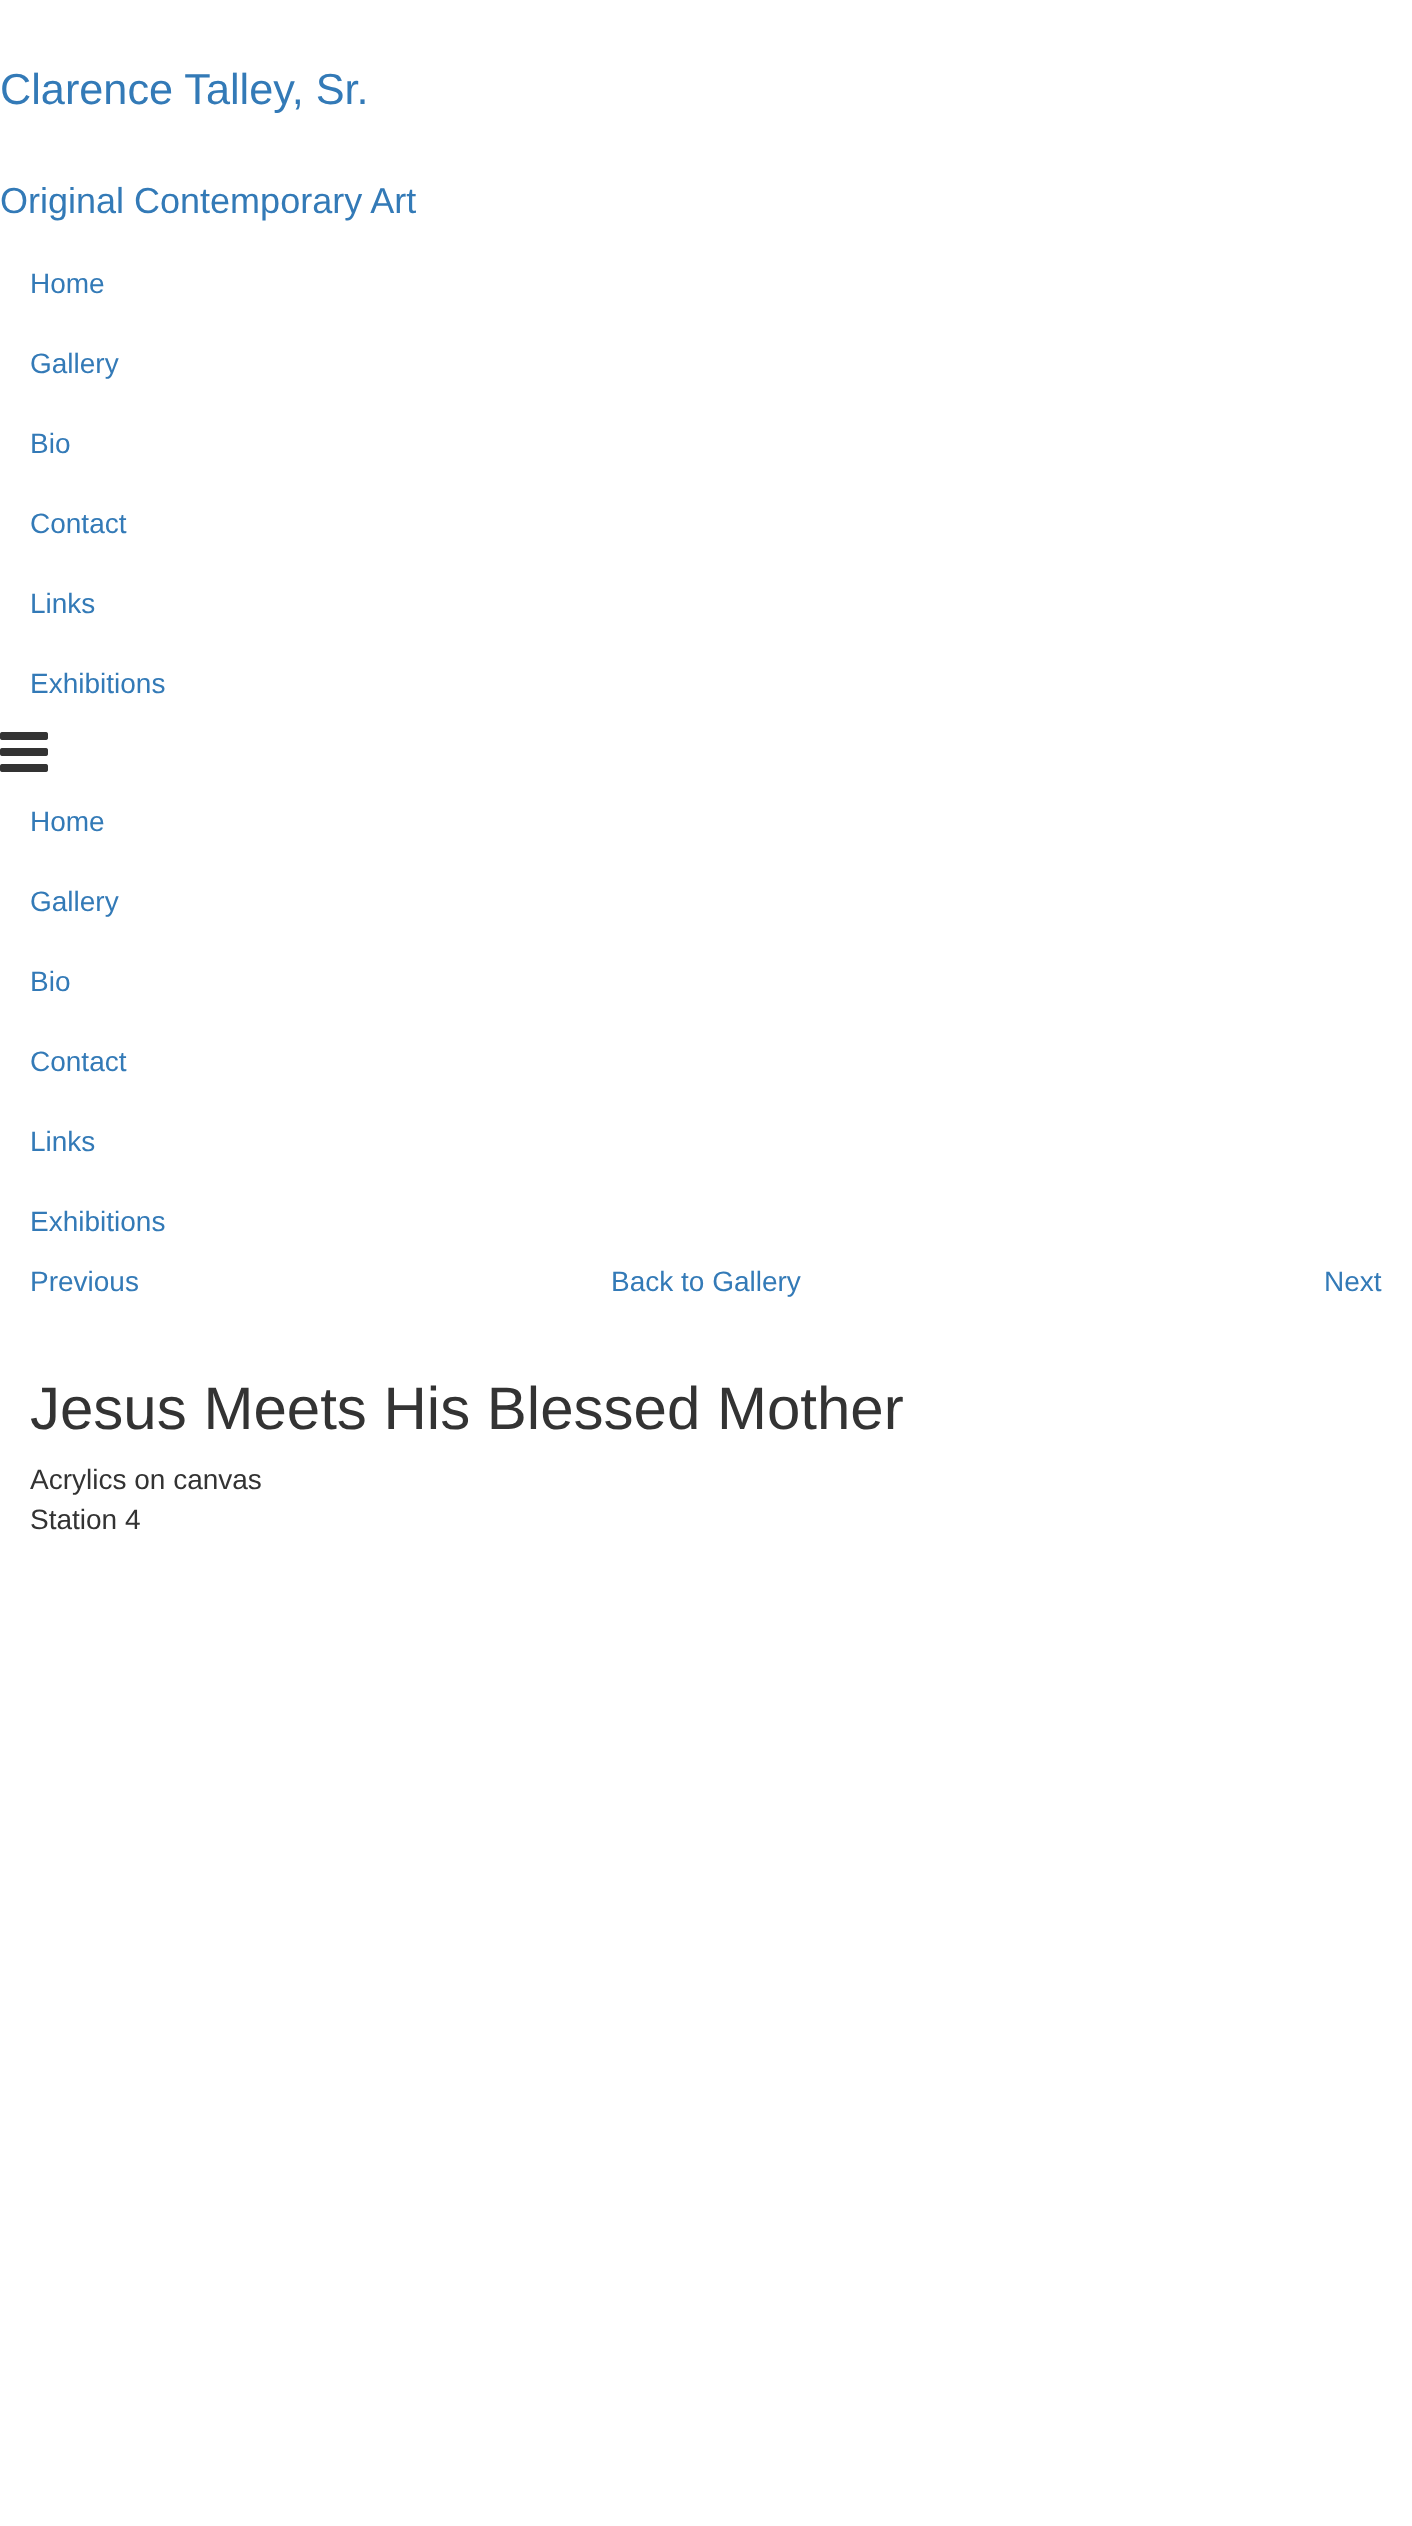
<!DOCTYPE html>
<meta charset="utf-8">
<style>body { margin: 0 } canvas { display: block }</style>
<canvas id="canvas" width="1412" height="2526"></canvas>
<script type="module">
  const canvas = document.getElementById("canvas");
  const ctx = canvas.getContext("2d");
  ctx.miterLimit = 4;
  ctx.fontKerning = "normal";
  async function loadImage(src) {
    const img = new Image();
    img.src = src;
    await img.decode();
    return img;
  }

  ctx.fillStyle = "#ffffff";
  ctx.fillRect(0, 0, 1412, 2526);
  ctx.font = "43.25px Liberation Sans";
  ctx.fillStyle = "#337ab7";
  ctx.fillText("Clarence Talley, Sr.", 0, 104);
  ctx.font = "36px Liberation Sans";
  ctx.fillText("Original Contemporary Art", 0, 213);
  ctx.font = "28px Liberation Sans";
  ctx.fillText("Home", 30, 293);
  ctx.fillText("Gallery", 30, 373);
  ctx.fillText("Bio", 30, 453);
  ctx.fillText("Contact", 30, 533);
  ctx.fillText("Links", 30, 613);
  ctx.fillText("Exhibitions", 30, 693);
  ctx.drawImage(await loadImage("img1.png"), 0, 732, 48, 40);
  ctx.fillText("Home", 30, 831);
  ctx.fillText("Gallery", 30, 911);
  ctx.fillText("Bio", 30, 991);
  ctx.fillText("Contact", 30, 1071);
  ctx.fillText("Links", 30, 1151);
  ctx.fillText("Exhibitions", 30, 1231);
  ctx.fillText("Previous", 30, 1291);
  ctx.fillText("Back to Gallery", 611, 1291);
  ctx.fillText("Next", 1324, 1291);
  ctx.font = "60px Liberation Sans";
  ctx.fillStyle = "#333333";
  ctx.fillText("Jesus Meets His Blessed Mother", 30, 1429);
  ctx.font = "28px Liberation Sans";
  ctx.fillText("Acrylics on canvas", 30, 1489);
  ctx.fillText("Station 4", 30, 1529);
</script>
